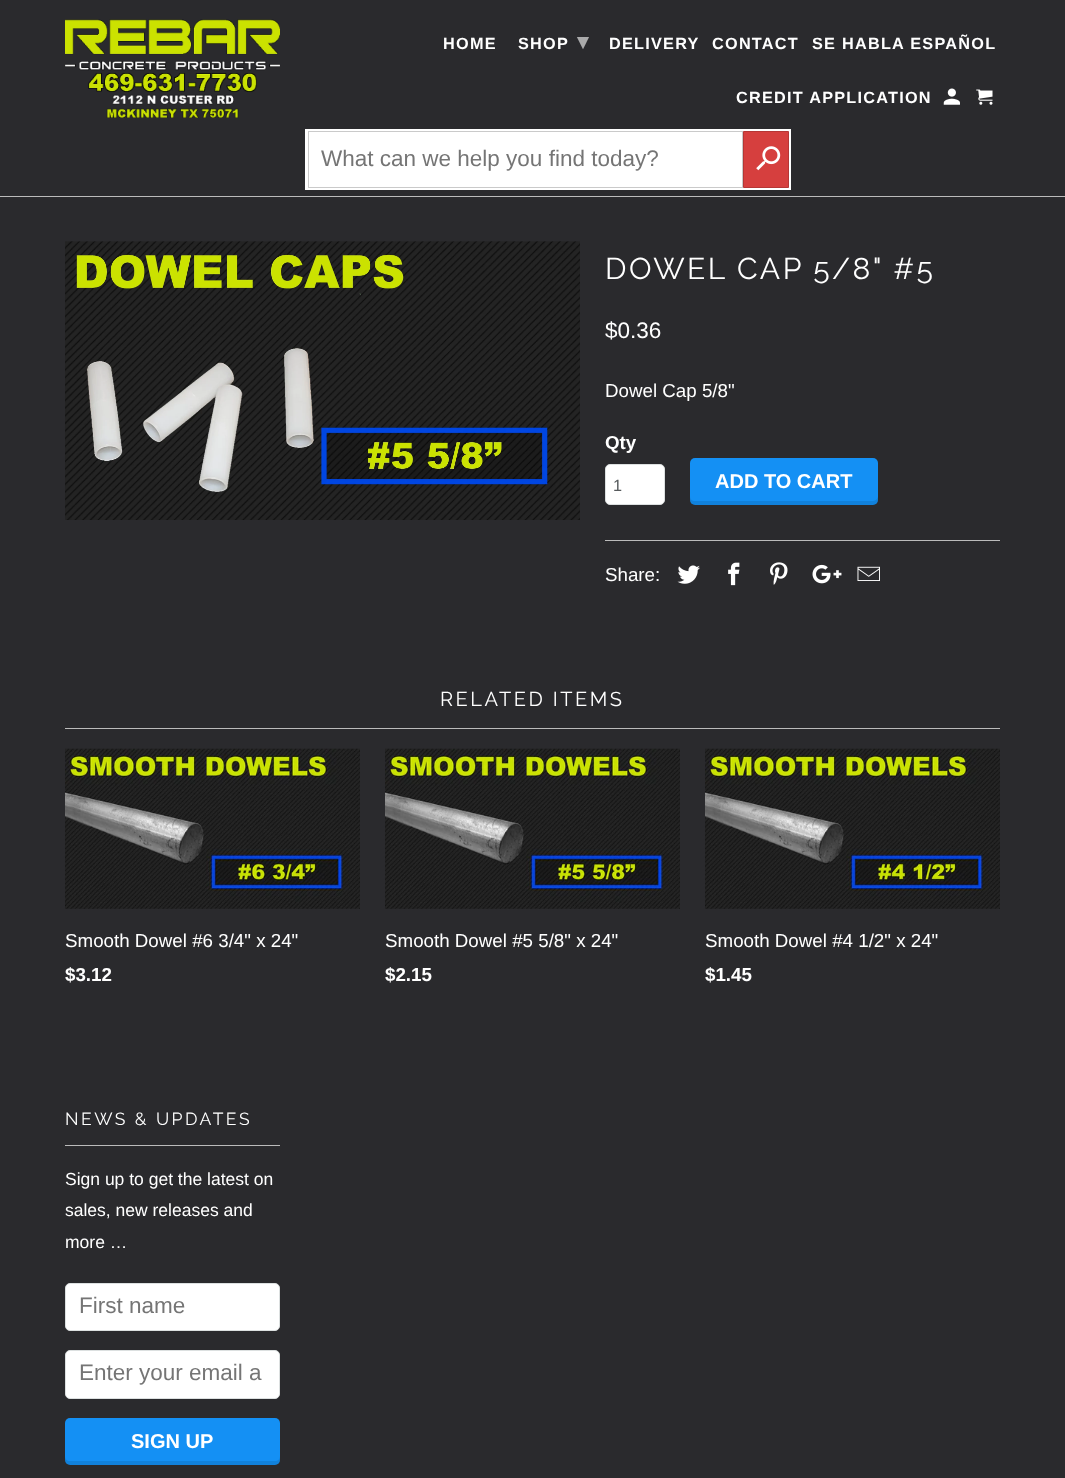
<!DOCTYPE html>
<meta charset="utf-8">
<style>body { margin: 0 } canvas { display: block }</style>
<canvas id="canvas" width="1065" height="1478"></canvas>
<script type="module">
  const canvas = document.getElementById("canvas");
  const ctx = canvas.getContext("2d");
  ctx.miterLimit = 4;
  ctx.fontKerning = "normal";
  async function loadImage(src) {
    const img = new Image();
    img.src = src;
    await img.decode();
    return img;
  }

  ctx.fillStyle = "#2a2a2d";
  ctx.fillRect(0, 0, 1065, 1478);
  ctx.fillStyle = "#bbbbbb";
  ctx.fillRect(0, 196, 1065, 1);
  ctx.drawImage(await loadImage("img1.png"), 65, 19, 215, 99);
  ctx.letterSpacing = "1.25px";
  ctx.font = "bold 16.25px Liberation Sans";
  ctx.fillStyle = "#ffffff";
  ctx.fillText("HOME", 443, 49);
  ctx.fillText("SHOP", 518, 49);
  ctx.font = "bold 22.5px DejaVu Sans";
  ctx.fillStyle = "#aaaaab";
  ctx.fillText("▾", 577, 49);
  ctx.font = "bold 16.25px Liberation Sans";
  ctx.fillStyle = "#ffffff";
  ctx.fillText("DELIVERY", 609, 49);
  ctx.fillText("CONTACT", 712, 49);
  ctx.fillText("SE HABLA ESPAÑOL", 812, 49);
  ctx.fillText("CREDIT APPLICATION", 736, 103);
  ctx.drawImage(await loadImage("img2.png"), 943, 88, 17, 17);
  ctx.drawImage(await loadImage("img3.png"), 976, 89, 17, 16);
  ctx.fillRect(305, 129, 486, 61);
  ctx.strokeStyle = "#cacaca";
  ctx.strokeRect(308.5, 131.5, 434, 56);
  ctx.letterSpacing = "0px";
  ctx.font = "22.5px Liberation Sans";
  ctx.fillStyle = "#757575";
  ctx.fillText("What can we help you find today?", 321, 166);
  ctx.fillStyle = "#d63f3e";
  ctx.beginPath();
  ctx.rect(743.5, 131.5, 45, 56);
  ctx.fill();
  ctx.strokeStyle = "#b63635";
  ctx.stroke();
  ctx.drawImage(await loadImage("img4.png"), 756, 146, 25, 25);
  ctx.drawImage(await loadImage("img5.png"), 65, 241, 515, 279);
  ctx.letterSpacing = "2.5px";
  ctx.font = "30px Raleway";
  ctx.fillStyle = "#ffffff";
  ctx.fillText("DOWEL CAP 5/8\" #5", 605, 279);
  ctx.letterSpacing = "0px";
  ctx.font = "22.5px Liberation Sans";
  ctx.fillText("$0.36", 605, 338);
  ctx.font = "18.75px Liberation Sans";
  ctx.fillText("Dowel Cap 5/8\"", 605, 397);
  ctx.font = "bold 18.75px Liberation Sans";
  ctx.fillText("Qty", 605, 449);
  ctx.beginPath();
  ctx.roundRect(605.5, 464.5, 59, 40, 4.5);
  ctx.fill();
  ctx.strokeStyle = "#dce0e0";
  ctx.stroke();
  ctx.font = "16.25px Liberation Sans";
  ctx.fillStyle = "#565a5c";
  ctx.fillText("1", 613, 491);
  ctx.fillStyle = "#1490f4";
  ctx.beginPath();
  ctx.roundRect(690, 458, 188, 47, 5);
  ctx.fill();
  ctx.fillStyle = "rgba(0, 0, 0, 0.1)";
  ctx.beginPath();
  ctx.moveTo(690, 496);
  ctx.lineTo(690, 500);
  ctx.bezierCurveTo(690, 503, 692, 505, 695, 505);
  ctx.lineTo(873, 505);
  ctx.bezierCurveTo(876, 505, 878, 503, 878, 500);
  ctx.lineTo(878, 496);
  ctx.bezierCurveTo(878, 499, 875, 501, 872, 501);
  ctx.lineTo(695, 501);
  ctx.bezierCurveTo(692, 501, 690, 499, 690, 496);
  ctx.closePath();
  ctx.fill();
  ctx.font = "bold 20px Liberation Sans";
  ctx.fillStyle = "#ffffff";
  ctx.fillText("ADD TO CART", 715, 488);
  ctx.fillStyle = "#bbbbbb";
  ctx.fillRect(605, 540, 395, 1);
  ctx.font = "18.75px Liberation Sans";
  ctx.fillStyle = "#ffffff";
  ctx.fillText("Share:", 605, 581);
  ctx.drawImage(await loadImage("img6.png"), 677, 565, 23, 19);
  ctx.drawImage(await loadImage("img7.png"), 728, 562, 12, 24);
  ctx.drawImage(await loadImage("img8.png"), 770, 562, 18, 23);
  ctx.drawImage(await loadImage("img9.png"), 812, 564, 30, 20);
  ctx.drawImage(await loadImage("img10.png"), 857, 566, 23, 15);
  ctx.fillStyle = "#bbbbbb";
  ctx.fillRect(65, 728, 935, 1);
  ctx.letterSpacing = "2.5px";
  ctx.font = "20px Raleway";
  ctx.fillStyle = "#ffffff";
  ctx.fillText("RELATED ITEMS", 440, 706);
  ctx.drawImage(await loadImage("img11.png"), 65, 748, 295, 161);
  ctx.letterSpacing = "0px";
  ctx.font = "18.75px Liberation Sans";
  ctx.fillText("Smooth Dowel #6 3/4\" x 24\"", 65, 947);
  ctx.font = "bold 18.75px Liberation Sans";
  ctx.fillText("$3.12", 65, 981);
  ctx.drawImage(await loadImage("img12.png"), 385, 748, 295, 161);
  ctx.font = "18.75px Liberation Sans";
  ctx.fillText("Smooth Dowel #5 5/8\" x 24\"", 385, 947);
  ctx.font = "bold 18.75px Liberation Sans";
  ctx.fillText("$2.15", 385, 981);
  ctx.drawImage(await loadImage("img13.png"), 705, 748, 295, 161);
  ctx.font = "18.75px Liberation Sans";
  ctx.fillText("Smooth Dowel #4 1/2\" x 24\"", 705, 947);
  ctx.font = "bold 18.75px Liberation Sans";
  ctx.fillText("$1.45", 705, 981);
  ctx.fillStyle = "#bbbbbb";
  ctx.fillRect(65, 1145, 215, 1);
  ctx.letterSpacing = "2.5px";
  ctx.font = "17.5px Raleway";
  ctx.fillStyle = "#ffffff";
  ctx.fillText("NEWS & UPDATES", 65, 1125);
  ctx.letterSpacing = "0px";
  ctx.font = "17.5px Liberation Sans";
  ctx.fillText("Sign up to get the latest on", 65, 1185);
  ctx.fillText("sales, new releases and", 65, 1216);
  ctx.fillText("more …", 65, 1248);
  ctx.beginPath();
  ctx.roundRect(65.5, 1283.5, 214, 47, 4.5);
  ctx.fill();
  ctx.stroke();
  ctx.font = "22.5px Liberation Sans";
  ctx.fillStyle = "#757575";
  ctx.fillText("First name", 79, 1313);
  ctx.fillStyle = "#ffffff";
  ctx.beginPath();
  ctx.roundRect(65.5, 1350.5, 214, 48, 4.5);
  ctx.fill();
  ctx.stroke();
  ctx.fillStyle = "#757575";
  ctx.fillText("Enter your email a", 79, 1380);
  ctx.fillStyle = "#1490f4";
  ctx.beginPath();
  ctx.roundRect(65, 1418, 215, 47, 5);
  ctx.fill();
  ctx.fillStyle = "rgba(0, 0, 0, 0.1)";
  ctx.beginPath();
  ctx.moveTo(65, 1456);
  ctx.lineTo(65, 1460);
  ctx.bezierCurveTo(65, 1463, 67, 1465, 70, 1465);
  ctx.lineTo(275, 1465);
  ctx.bezierCurveTo(278, 1465, 280, 1463, 280, 1460);
  ctx.lineTo(280, 1456);
  ctx.bezierCurveTo(280, 1459, 278, 1461, 275, 1461);
  ctx.lineTo(70, 1461);
  ctx.bezierCurveTo(67, 1461, 65, 1459, 65, 1456);
  ctx.closePath();
  ctx.fill();
  ctx.font = "bold 20px Liberation Sans";
  ctx.fillStyle = "#ffffff";
  ctx.fillText("SIGN UP", 131, 1448);
</script>
